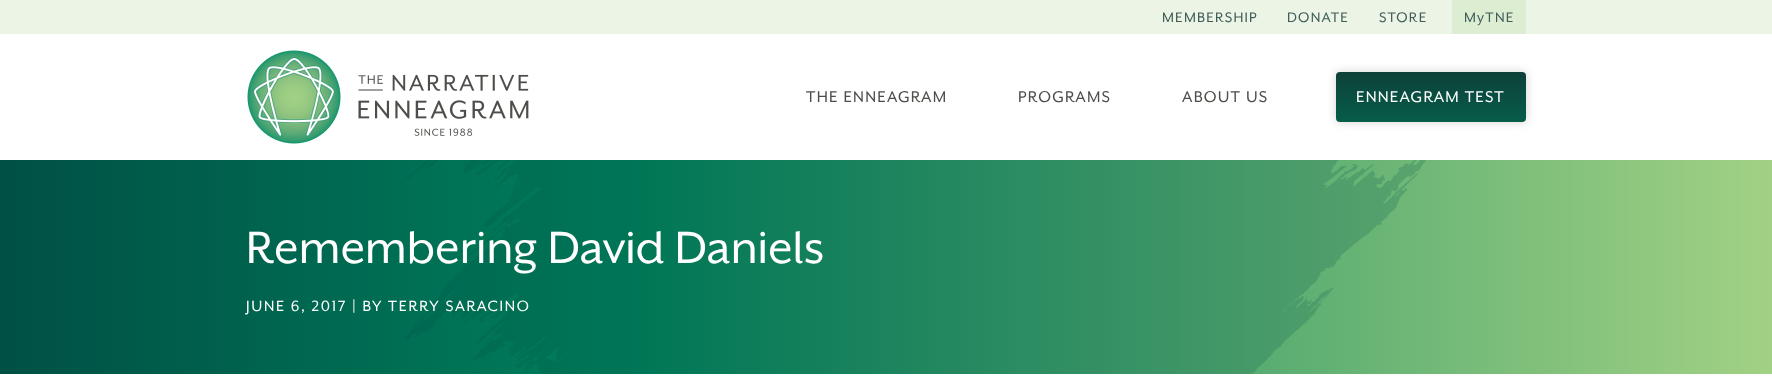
<!DOCTYPE html>
<meta charset="utf-8">
<style>body { margin: 0 } canvas { display: block }</style>
<canvas id="canvas" width="1772" height="377"></canvas>
<script type="module">
  const canvas = document.getElementById("canvas");
  const ctx = canvas.getContext("2d");
  ctx.miterLimit = 4;
  ctx.fontKerning = "normal";
  async function loadImage(src) {
    const img = new Image();
    img.src = src;
    await img.decode();
    return img;
  }
  let gradient;

  ctx.fillStyle = "#ffffff";
  ctx.fillRect(0, 0, 1772, 377);
  ctx.drawImage(await loadImage("img1.png"), 247, 50, 282, 94);
  ctx.fillStyle = "#ebf4e5";
  ctx.fillRect(0, 0, 1772, 34);
  ctx.letterSpacing = "1.25px";
  ctx.font = "16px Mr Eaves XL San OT";
  ctx.fillStyle = "#3f5d59";
  ctx.fillText("MEMBERSHIP", 1162, 22);
  ctx.fillText("DONATE", 1287, 22);
  ctx.fillText("STORE", 1379, 22);
  ctx.fillStyle = "#dcedd2";
  ctx.fillRect(1452, 0, 74, 34);
  ctx.fillStyle = "#3f5d59";
  ctx.fillText("MyTNE", 1464, 22);
  ctx.font = "18px Mr Eaves XL San OT";
  ctx.fillStyle = "#4d4d4a";
  ctx.fillText("THE ENNEAGRAM", 806, 102);
  ctx.fillText("PROGRAMS", 1018, 102);
  ctx.fillText("ABOUT US", 1182, 102);
  gradient = ctx.createLinearGradient(1431, 122, 1431, 72);
  gradient.addColorStop(0, "#065d49");
  gradient.addColorStop(1, "#0d4039");
  ctx.fillStyle = gradient;
  ctx.beginPath();
  ctx.roundRect(1336, 72, 190, 50, 4);
  ctx.fill();
  ctx.save();
  ctx.beginPath();
  ctx.moveTo(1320, 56);
  ctx.lineTo(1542, 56);
  ctx.lineTo(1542, 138);
  ctx.lineTo(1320, 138);
  ctx.closePath();
  ctx.moveTo(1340, 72);
  ctx.lineTo(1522, 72);
  ctx.bezierCurveTo(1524, 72, 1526, 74, 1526, 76);
  ctx.lineTo(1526, 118);
  ctx.bezierCurveTo(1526, 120, 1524, 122, 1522, 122);
  ctx.lineTo(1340, 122);
  ctx.bezierCurveTo(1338, 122, 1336, 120, 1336, 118);
  ctx.lineTo(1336, 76);
  ctx.bezierCurveTo(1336, 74, 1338, 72, 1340, 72);
  ctx.closePath();
  ctx.clip("evenodd");
  ctx.fillStyle = "rgba(0, 0, 0, 0.18)";
  ctx.filter = "blur(5px)";
  ctx.beginPath();
  ctx.roundRect(1336, 72, 190, 50, 4);
  ctx.fill();
  ctx.filter = "none";
  ctx.restore();
  ctx.fillStyle = "#ffffff";
  ctx.fillText("ENNEAGRAM TEST", 1356, 102);
  gradient = ctx.createLinearGradient(1772, 267, 0, 267);
  gradient.addColorStop(0, "#a2d184");
  gradient.addColorStop(0.64, "#00805b");
  gradient.addColorStop(1, "#005045");
  ctx.fillStyle = gradient;
  ctx.fillRect(0, 160, 1772, 214);
  ctx.drawImage(await loadImage("img2.png"), 396, 160, 1030, 214);
  ctx.letterSpacing = "0px";
  ctx.font = "52px Mr Eaves XL San OT";
  ctx.fillStyle = "#ffffff";
  ctx.fillText("Remembering David Daniels", 246, 263);
  ctx.letterSpacing = "1.7px";
  ctx.font = "17.1px Mr Eaves XL San OT";
  ctx.fillText("JUNE 6, 2017 | BY TERRY SARACINO", 246, 311);
</script>
